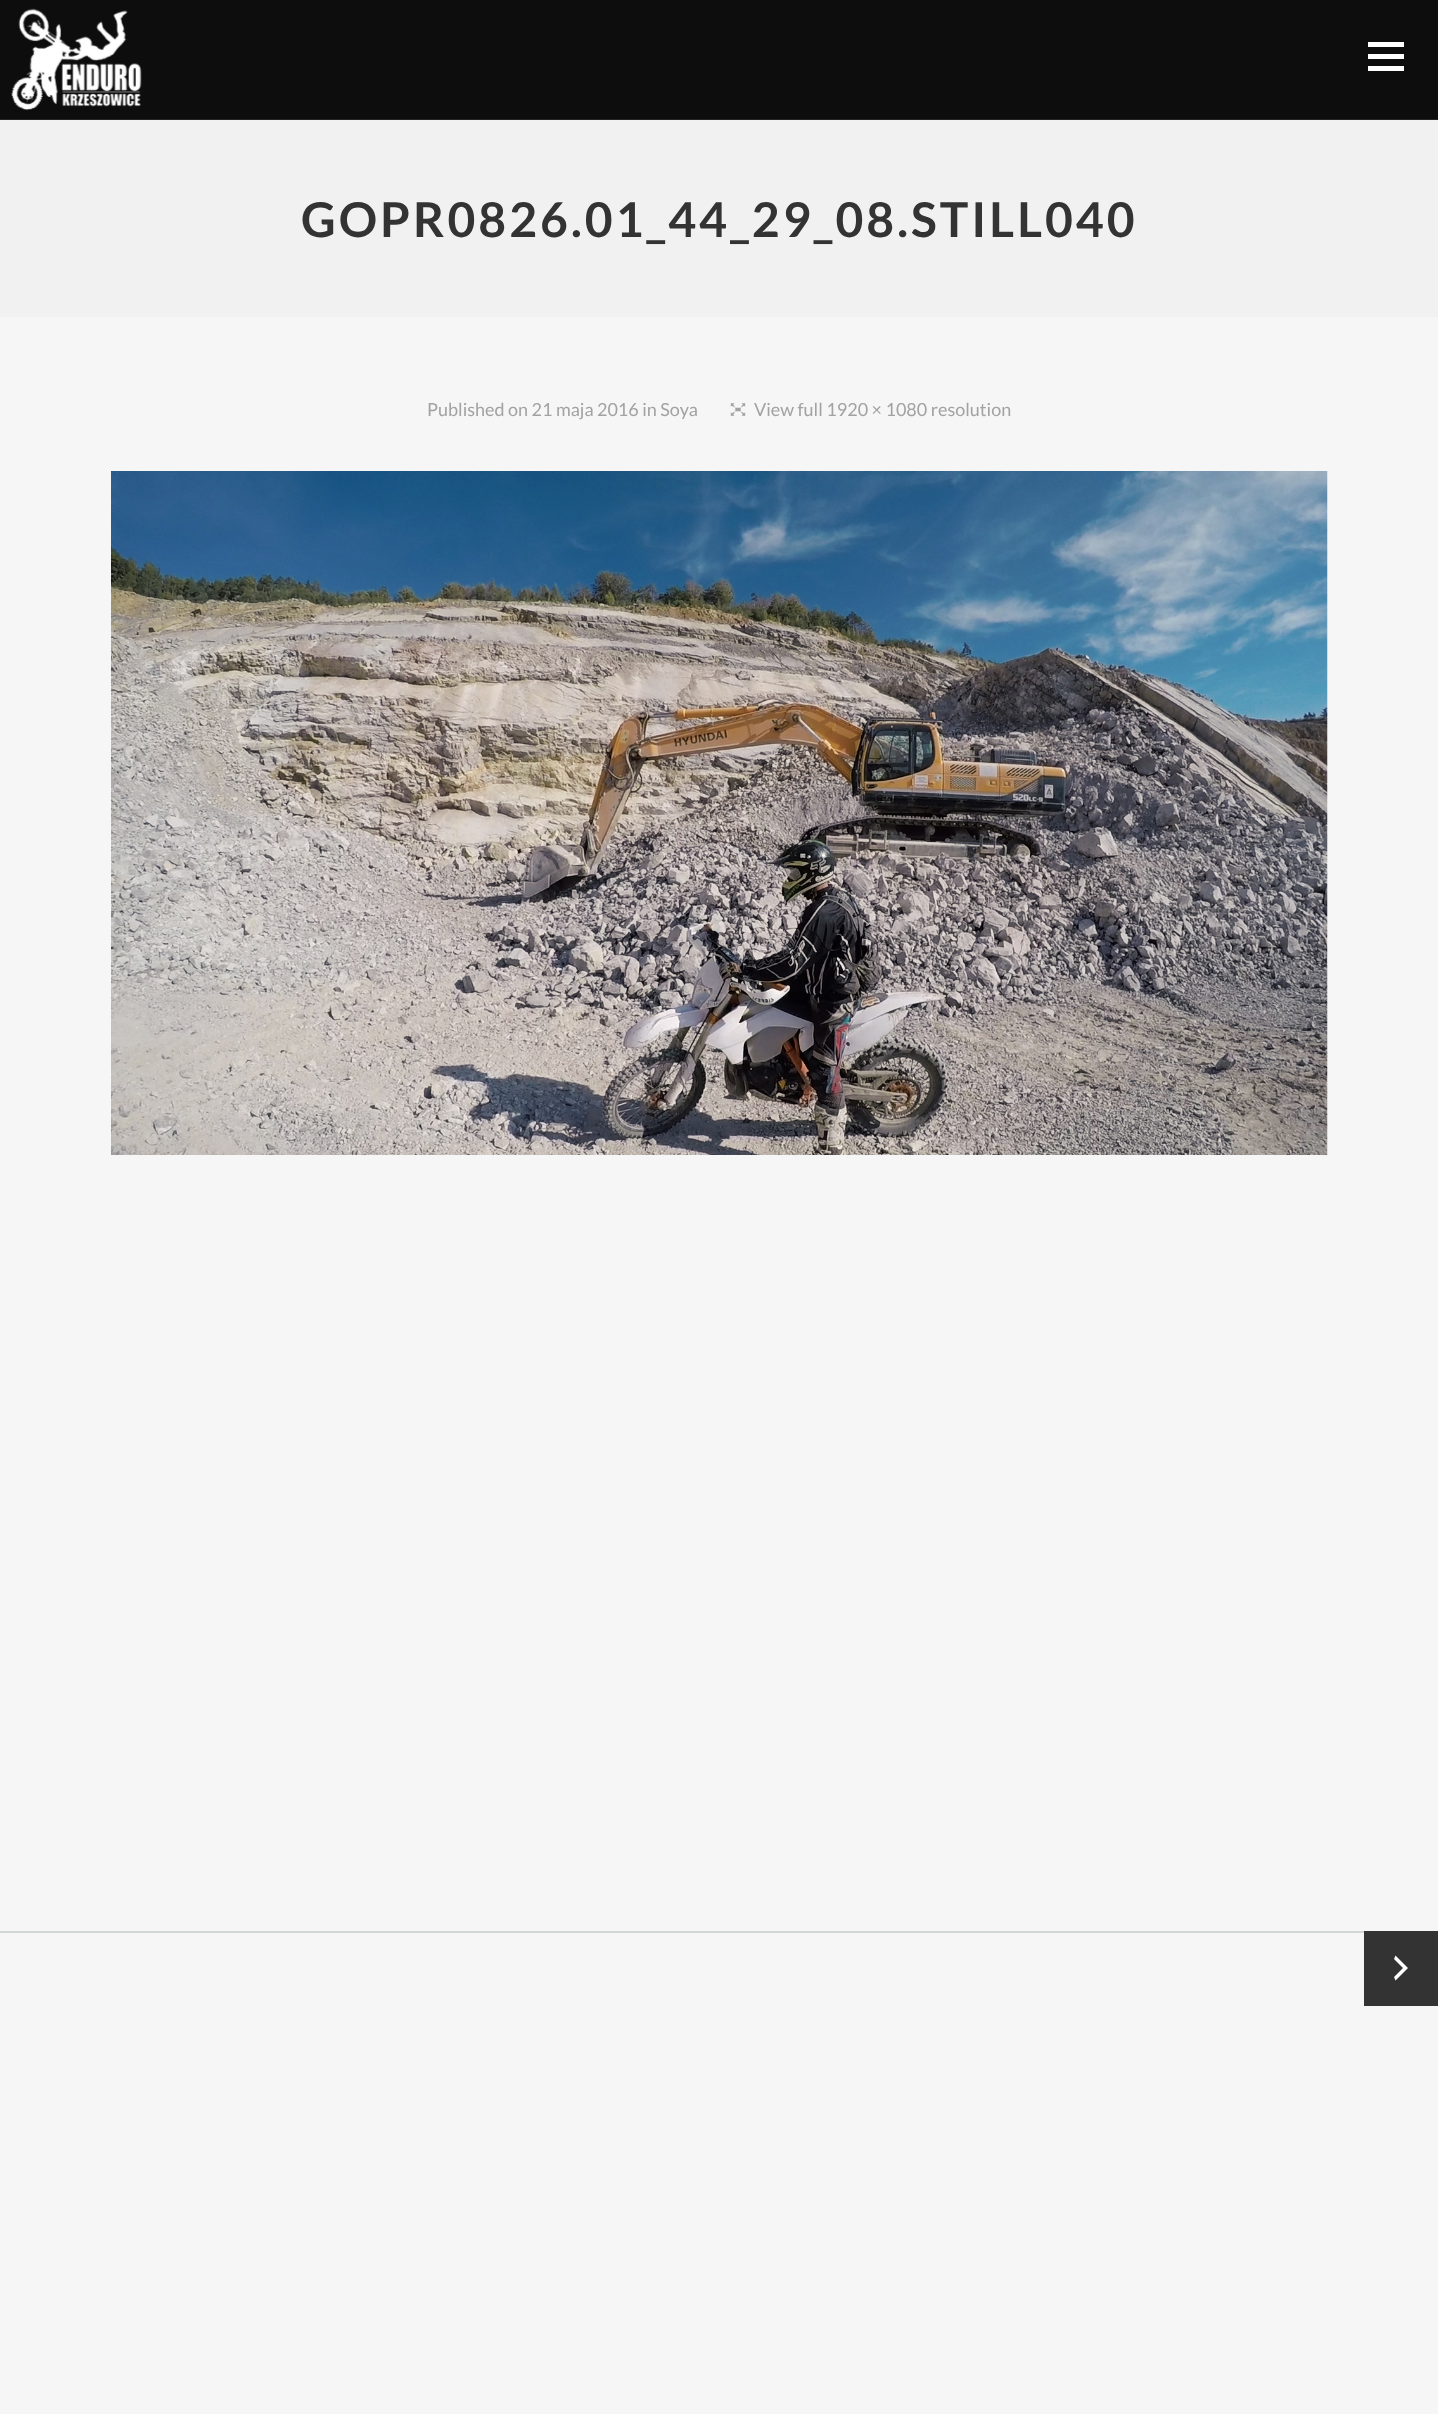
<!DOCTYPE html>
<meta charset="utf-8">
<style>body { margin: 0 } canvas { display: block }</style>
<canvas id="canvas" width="1438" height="2414"></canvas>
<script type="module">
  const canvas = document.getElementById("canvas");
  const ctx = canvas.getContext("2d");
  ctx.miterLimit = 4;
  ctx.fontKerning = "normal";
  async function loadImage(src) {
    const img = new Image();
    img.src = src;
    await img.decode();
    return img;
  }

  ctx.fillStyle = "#f6f6f6";
  ctx.fillRect(0, 0, 1438, 2414);
  ctx.fillStyle = "#0d0d0d";
  ctx.fillRect(0, 0, 1438, 119);
  ctx.fillStyle = "#252525";
  ctx.fillRect(0, 119, 1438, 1);
  ctx.drawImage(await loadImage("img1.png"), 11, 8, 131, 103);
  ctx.fillStyle = "#ffffff";
  ctx.fillRect(1368, 42, 36, 5);
  ctx.fillRect(1368, 54, 36, 5);
  ctx.fillRect(1368, 66, 36, 5);
  ctx.fillStyle = "#f1f1f1";
  ctx.fillRect(0, 121, 1438, 196);
  ctx.fillStyle = "#f2f2f2";
  ctx.fillRect(0, 120, 1438, 1);
  ctx.letterSpacing = "3px";
  ctx.font = "bold 48px Lato";
  ctx.fillStyle = "#333333";
  ctx.fillText("GOPR0826.01_44_29_08.STILL040", 301, 237);
  ctx.letterSpacing = "0px";
  ctx.font = "18px Lato";
  ctx.fillStyle = "#a2a2a2";
  ctx.fillText("Published on 21 maja 2016 in Soya", 427, 416);
  ctx.drawImage(await loadImage("img2.png"), 730, 403, 16, 13);
  ctx.fillText("View full 1920 × 1080 resolution", 754, 416);
  ctx.drawImage(await loadImage("img3.png"), 111, 471, 1217, 684);
  ctx.fillStyle = "#d2d6d5";
  ctx.fillRect(0, 1931, 1364, 2);
  ctx.fillStyle = "#333333";
  ctx.fillRect(1364, 1931, 74, 75);
  ctx.fillStyle = "#ffffff";
  ctx.beginPath();
  ctx.moveTo(1394, 1977);
  ctx.lineTo(1403, 1968);
  ctx.lineTo(1394, 1959);
  ctx.lineTo(1395.5, 1955.5);
  ctx.lineTo(1408, 1968);
  ctx.lineTo(1395.5, 1980.5);
  ctx.closePath();
  ctx.fill();
</script>
